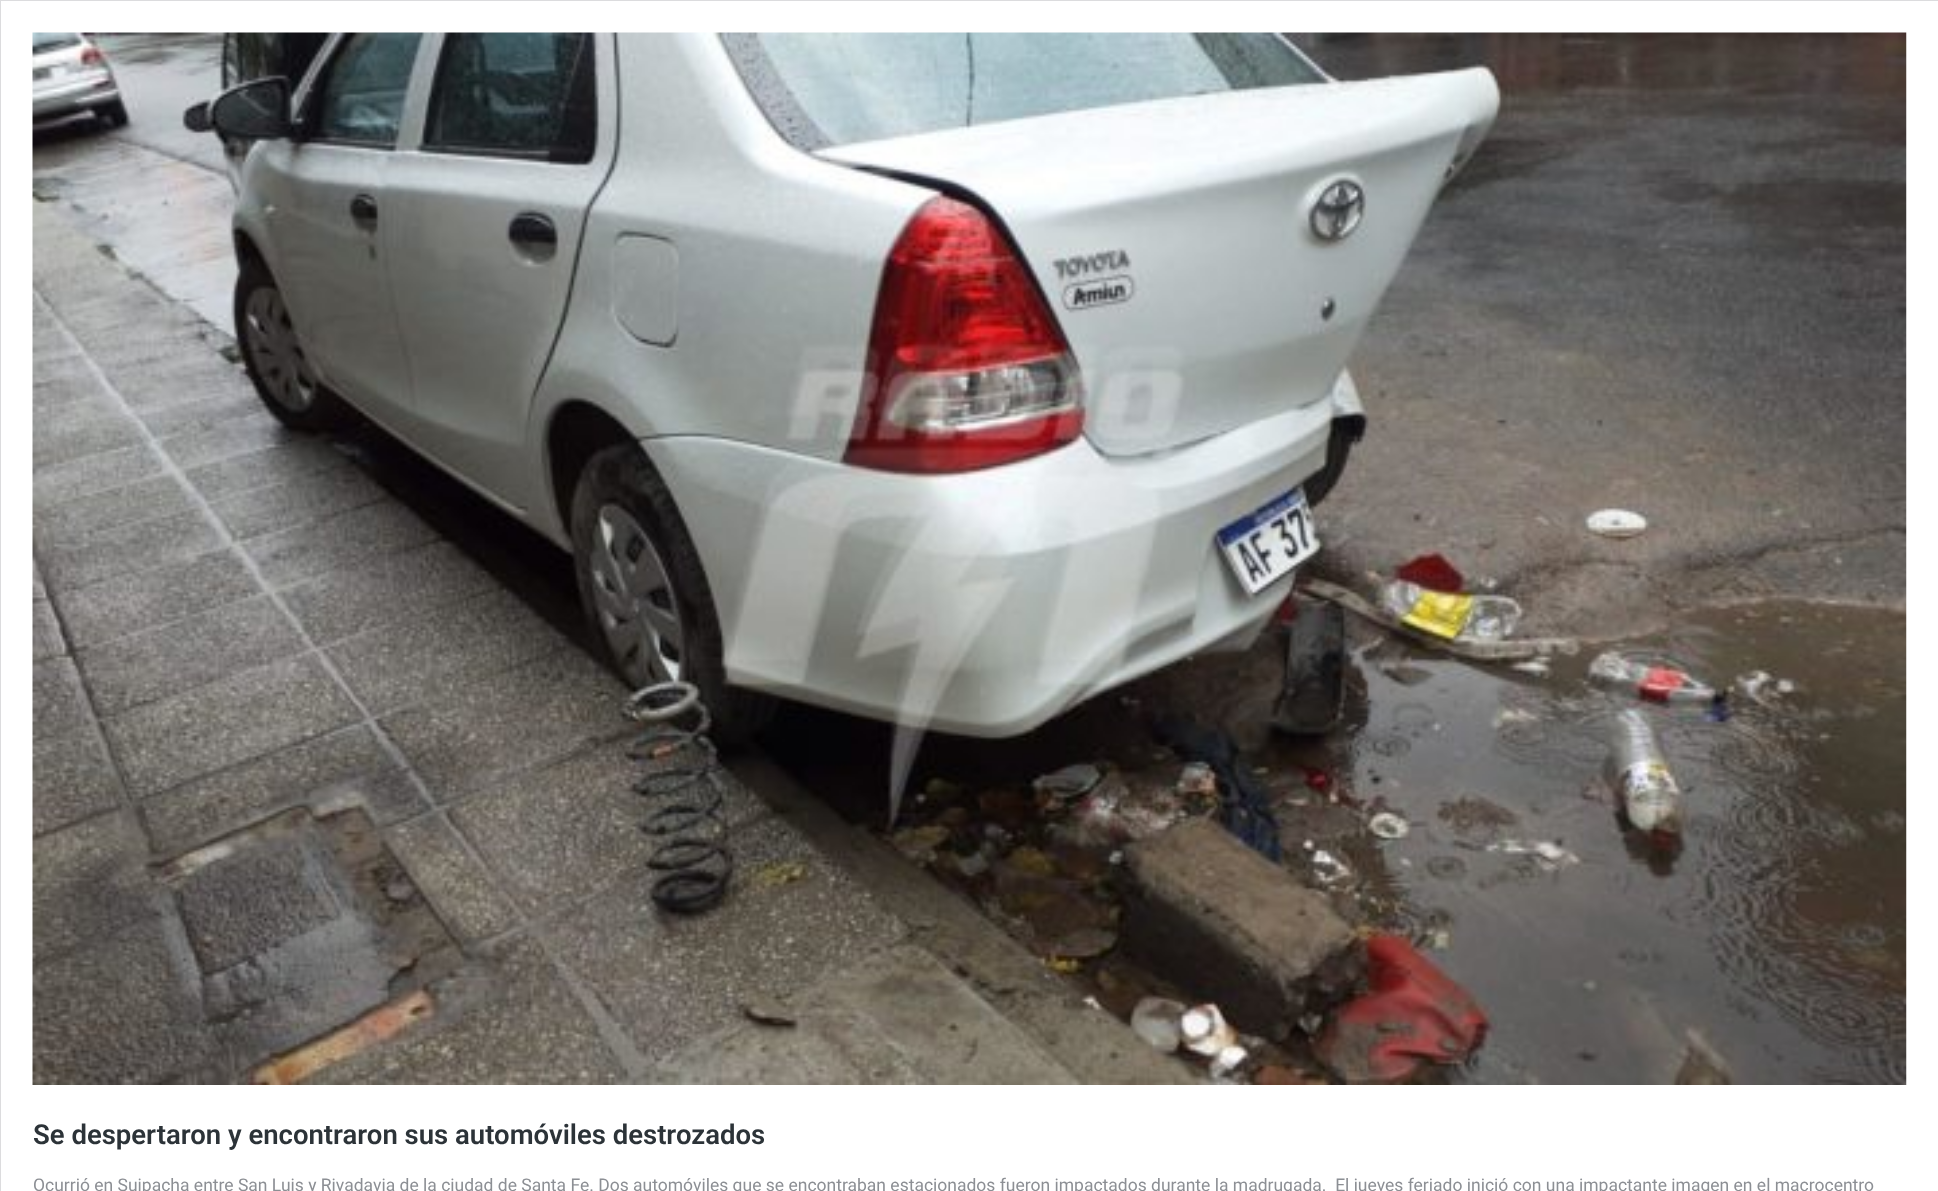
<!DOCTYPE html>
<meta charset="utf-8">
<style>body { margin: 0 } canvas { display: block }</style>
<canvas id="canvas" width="1938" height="1191"></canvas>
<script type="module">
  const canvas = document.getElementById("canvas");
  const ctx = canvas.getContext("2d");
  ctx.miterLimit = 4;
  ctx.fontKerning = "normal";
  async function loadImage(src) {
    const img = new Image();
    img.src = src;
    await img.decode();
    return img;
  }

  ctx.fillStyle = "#ffffff";
  ctx.fillRect(0, 0, 1938, 1191);
  ctx.strokeStyle = "#dcdcde";
  ctx.strokeRect(0.5, 0.5, 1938, 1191);
  ctx.drawImage(await loadImage("img1.png"), 32, 32, 1875, 1053);
  ctx.font = "600 27.5px Roboto";
  ctx.fillStyle = "#2c3338";
  ctx.fillText("Se despertaron y encontraron sus automóviles destrozados", 33, 1144);
  ctx.font = "17.5px Roboto";
  ctx.fillStyle = "#8c8f94";
  ctx.fillText("Ocurrió en Suipacha entre San Luis y Rivadavia de la ciudad de Santa Fe. Dos automóviles que se encontraban estacionados fueron impactados durante la madrugada.  El jueves feriado inició con una impactante imagen en el macrocentro", 33, 1191);
</script>
